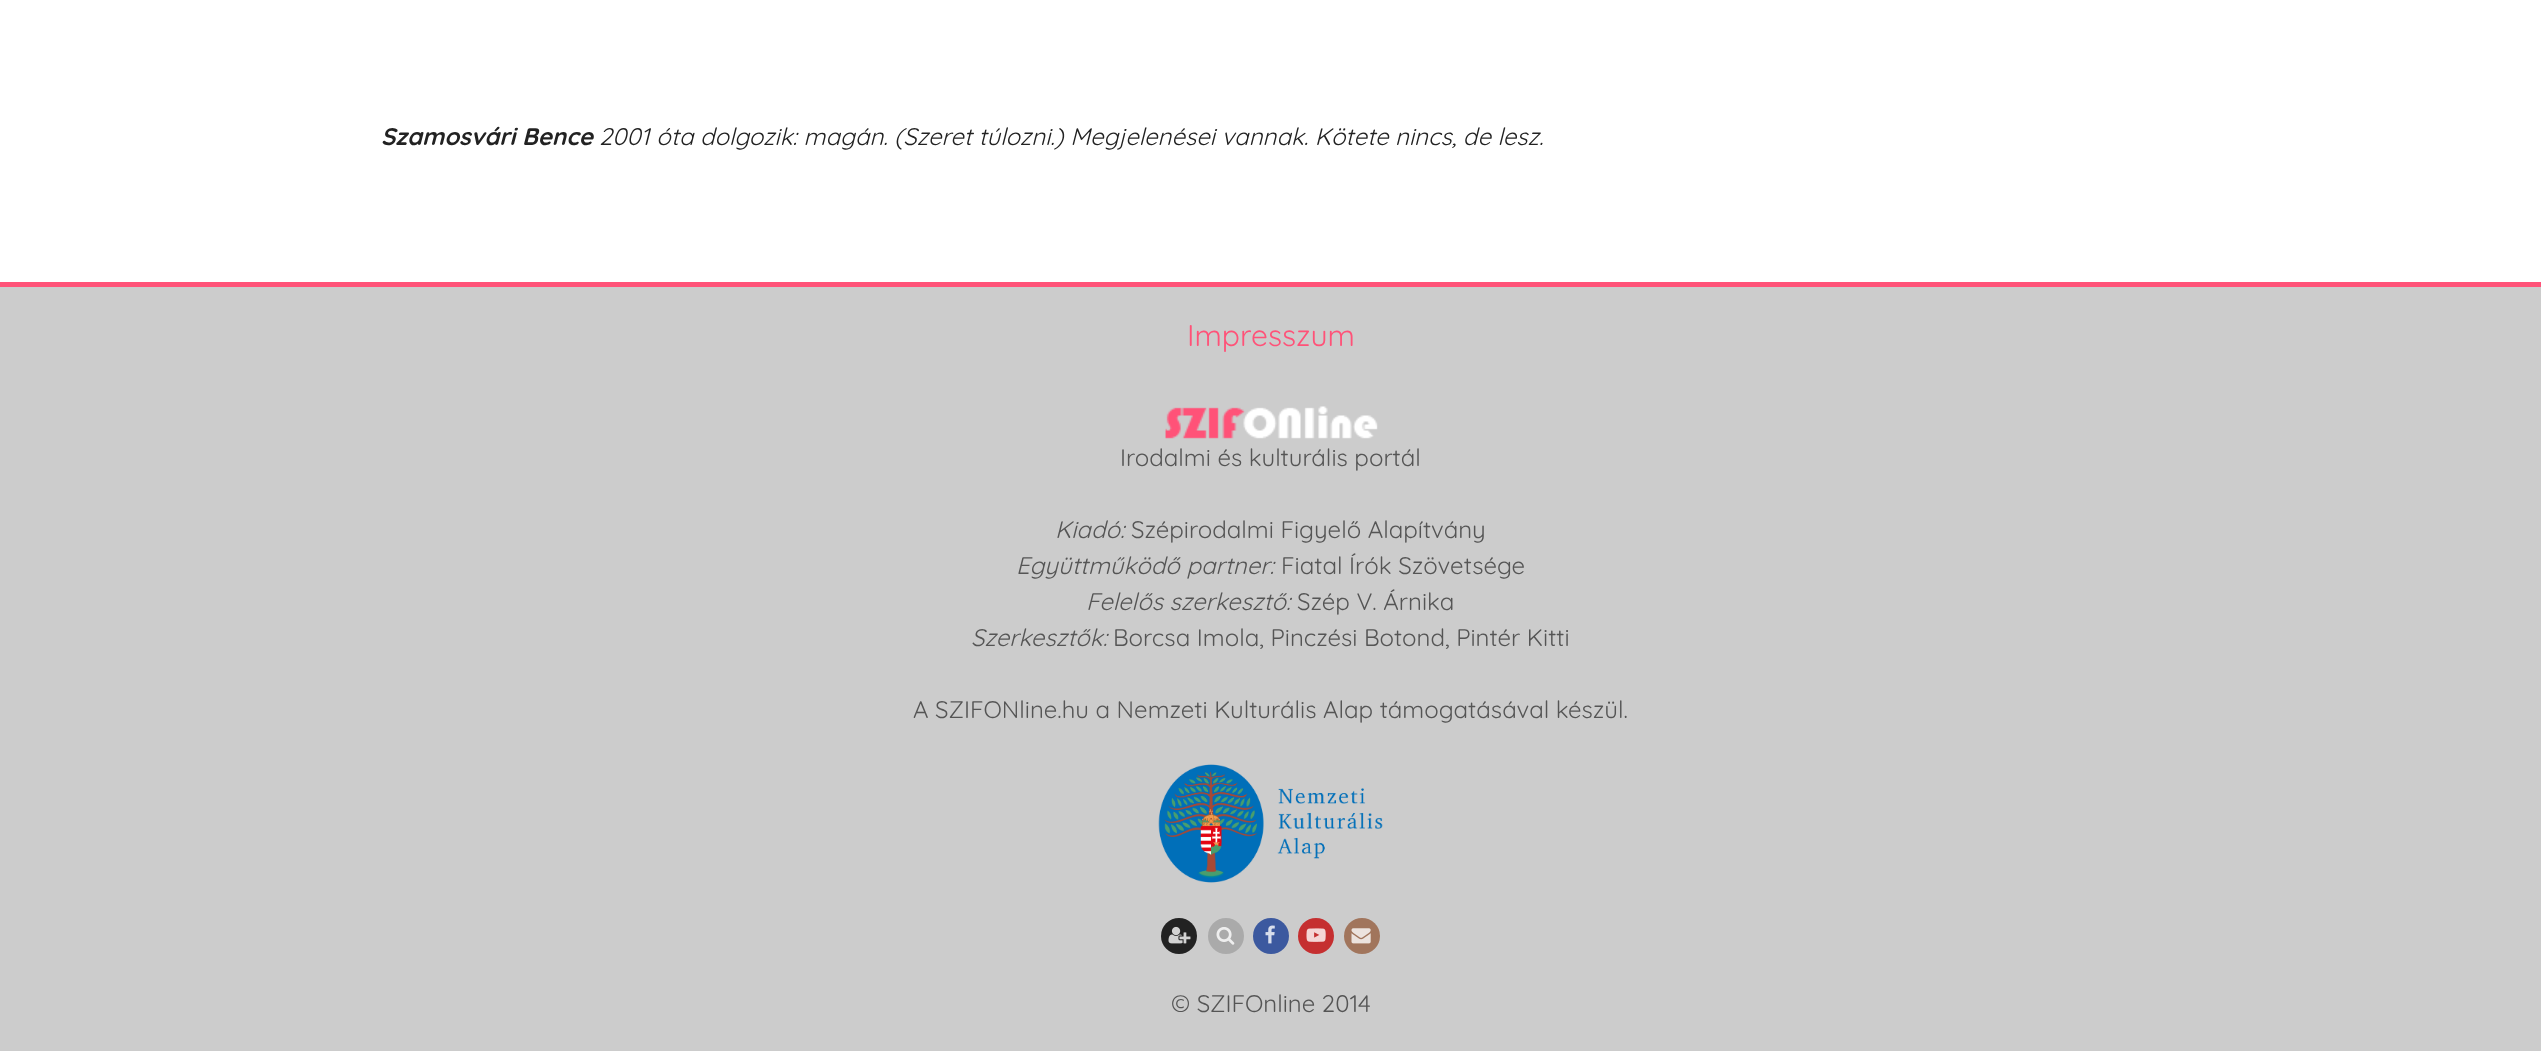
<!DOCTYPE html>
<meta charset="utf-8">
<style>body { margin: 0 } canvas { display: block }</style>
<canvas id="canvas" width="2541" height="1051"></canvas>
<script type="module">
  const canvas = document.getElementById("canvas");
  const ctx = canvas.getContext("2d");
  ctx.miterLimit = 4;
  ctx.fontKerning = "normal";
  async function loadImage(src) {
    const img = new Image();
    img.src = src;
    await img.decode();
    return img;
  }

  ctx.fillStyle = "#ffffff";
  ctx.fillRect(0, 0, 2541, 1051);
  ctx.font = "italic bold 24px Quicksand";
  ctx.fillStyle = "#222222";
  ctx.fillText("Szamosvári Bence", 381, 145);
  ctx.font = "italic 24px Quicksand";
  ctx.fillText("2001 óta dolgozik: magán. (Szeret túlozni.) Megjelenései vannak. Kötete nincs, de lesz.", 599, 145);
  ctx.fillStyle = "#cccccc";
  ctx.fillRect(0, 287, 2541, 764);
  ctx.fillStyle = "#ff5278";
  ctx.fillRect(0, 282, 2541, 5);
  ctx.font = "30px Quicksand";
  ctx.fillText("Impresszum", 1187, 346);
  ctx.drawImage(await loadImage("img1.png"), 1165, 406, 213, 33);
  ctx.font = "24px Quicksand";
  ctx.fillStyle = "#555555";
  ctx.fillText("Irodalmi és kulturális portál", 1120, 466);
  ctx.font = "italic 24px Quicksand";
  ctx.fillText("Kiadó:", 1055, 538);
  ctx.font = "24px Quicksand";
  ctx.fillText("Szépirodalmi Figyelő Alapítvány", 1131, 538);
  ctx.font = "italic 24px Quicksand";
  ctx.fillText("Együttműködő partner:", 1016, 574);
  ctx.font = "24px Quicksand";
  ctx.fillText("Fiatal Írók Szövetsége", 1281, 574);
  ctx.font = "italic 24px Quicksand";
  ctx.fillText("Felelős szerkesztő:", 1086, 610);
  ctx.font = "24px Quicksand";
  ctx.fillText("Szép V. Árnika", 1297, 610);
  ctx.font = "italic 24px Quicksand";
  ctx.fillText("Szerkesztők:", 971, 646);
  ctx.font = "24px Quicksand";
  ctx.fillText("Borcsa Imola, Pinczési Botond, Pintér Kitti", 1113, 646);
  ctx.fillText("A SZIFONline.hu a Nemzeti Kulturális Alap támogatásával készül.", 913, 718);
  ctx.drawImage(await loadImage("img2.png"), 1158, 764, 225, 119);
  ctx.fillStyle = "#222222";
  ctx.beginPath();
  ctx.arc(1179, 936, 18, 0, Math.PI * 2);
  ctx.fill();
  ctx.drawImage(await loadImage("img3.png"), 1168, 926, 23, 18);
  ctx.fillStyle = "#aaaaaa";
  ctx.beginPath();
  ctx.arc(1226, 936, 18, 0, Math.PI * 2);
  ctx.fill();
  ctx.drawImage(await loadImage("img4.png"), 1216, 927, 19, 18);
  ctx.fillStyle = "#3c599f";
  ctx.beginPath();
  ctx.arc(1271, 936, 18, 0, Math.PI * 2);
  ctx.fill();
  ctx.drawImage(await loadImage("img5.png"), 1265, 925, 10, 19);
  ctx.fillStyle = "#c52f30";
  ctx.beginPath();
  ctx.arc(1316, 936, 18, 0, Math.PI * 2);
  ctx.fill();
  ctx.drawImage(await loadImage("img6.png"), 1306, 928, 20, 14);
  ctx.fillStyle = "#a1755c";
  ctx.beginPath();
  ctx.arc(1362, 936, 18, 0, Math.PI * 2);
  ctx.fill();
  ctx.drawImage(await loadImage("img7.png"), 1351, 928, 20, 16);
  ctx.fillStyle = "#555555";
  ctx.fillText("© SZIFOnline 2014", 1171, 1012);
</script>
